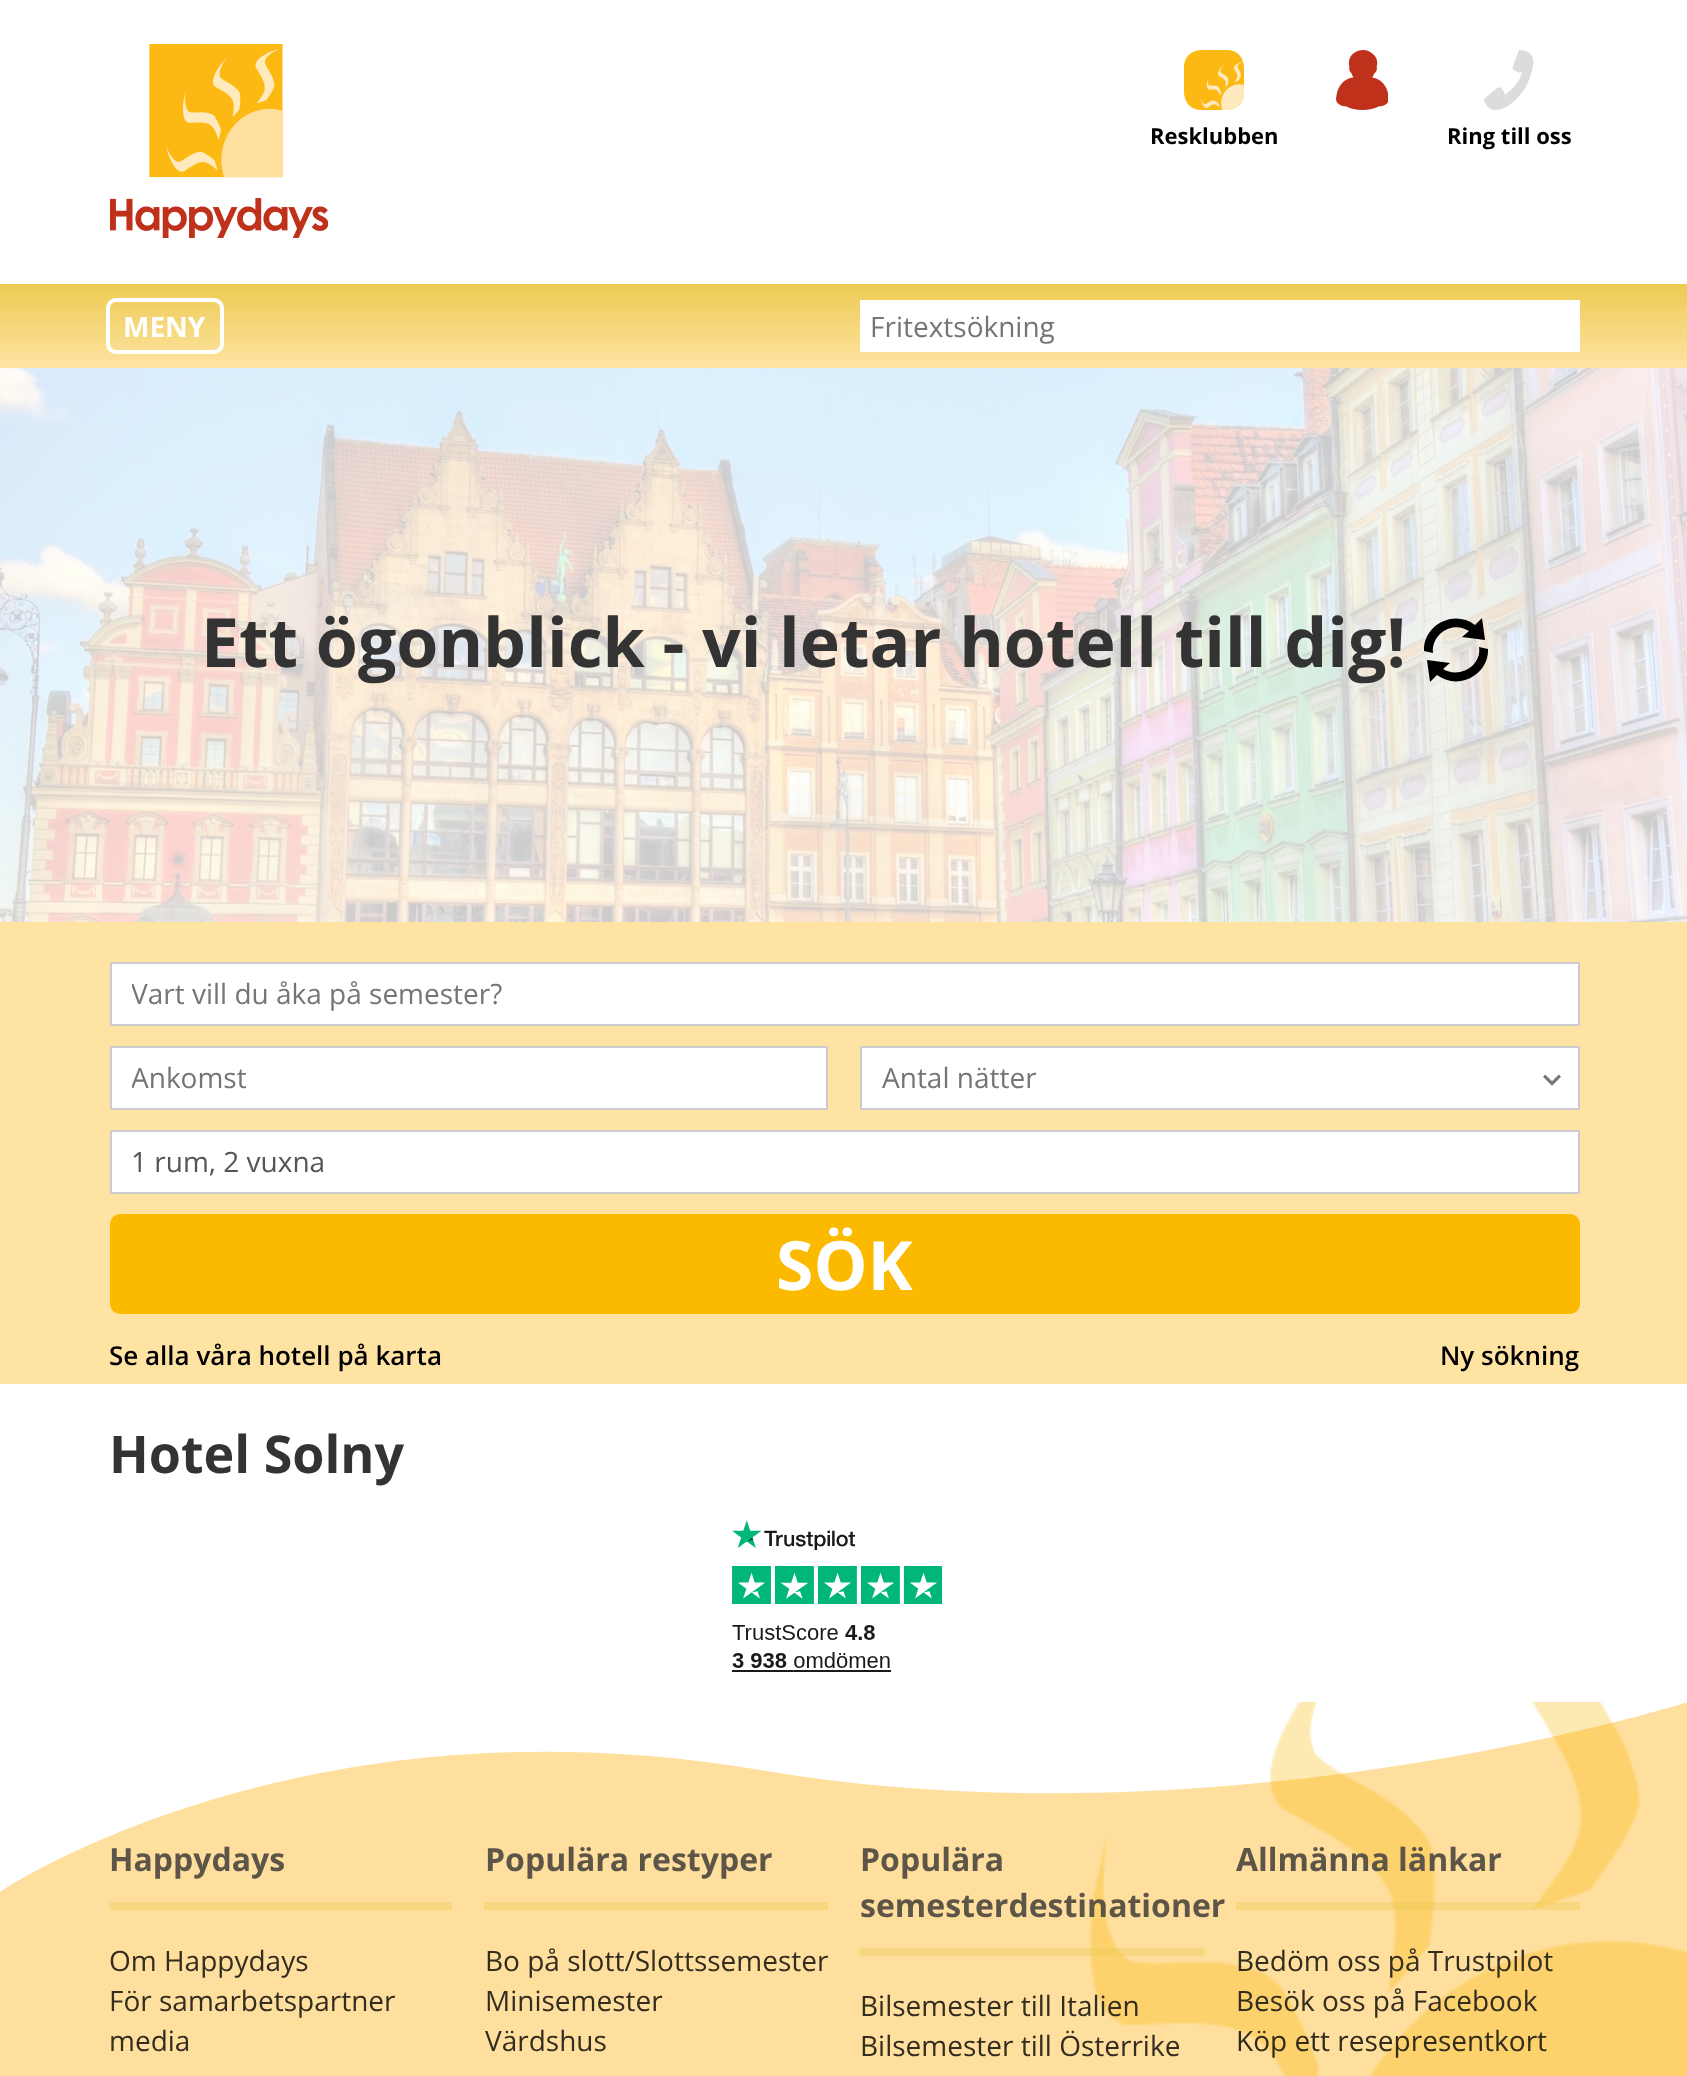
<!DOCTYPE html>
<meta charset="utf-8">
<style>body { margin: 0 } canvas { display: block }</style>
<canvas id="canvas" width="1687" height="2076"></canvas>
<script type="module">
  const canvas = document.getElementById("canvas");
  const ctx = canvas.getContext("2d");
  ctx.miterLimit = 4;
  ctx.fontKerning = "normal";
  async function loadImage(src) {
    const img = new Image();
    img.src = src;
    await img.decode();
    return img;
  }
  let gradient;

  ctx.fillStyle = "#ffffff";
  ctx.fillRect(0, 0, 1687, 2076);
  ctx.drawImage(await loadImage("img1.png"), 110, 44, 218, 194);
  ctx.drawImage(await loadImage("img2.png"), 1336, 50, 52, 60);
  ctx.drawImage(await loadImage("img3.png"), 1184, 50, 60, 60);
  ctx.font = "bold 22px Open Sans";
  ctx.fillStyle = "#000000";
  ctx.fillText("Resklubben", 1150, 144);
  ctx.save();
  ctx.beginPath();
  ctx.rect(1484, 50, 50, 60);
  ctx.clip();
  ctx.fillStyle = "#dbdcdd";
  ctx.beginPath();
  ctx.moveTo(1533, 66);
  ctx.bezierCurveTo(1527, 100, 1502, 109, 1502, 109);
  ctx.bezierCurveTo(1491, 113, 1484, 105, 1484, 99);
  ctx.lineTo(1497, 88);
  ctx.bezierCurveTo(1501, 85, 1505, 93, 1505, 95);
  ctx.lineTo(1515, 86);
  ctx.lineTo(1513, 88);
  ctx.bezierCurveTo(1517, 83, 1521, 78, 1522, 72);
  ctx.bezierCurveTo(1519, 73, 1511, 71, 1513, 66);
  ctx.lineTo(1519, 50);
  ctx.bezierCurveTo(1524, 49, 1536, 53, 1533, 66);
  ctx.fill();
  ctx.restore();
  ctx.fillText("Ring till oss", 1447, 144);
  gradient = ctx.createLinearGradient(844, 284, 844, 368);
  gradient.addColorStop(0, "#eccb53");
  gradient.addColorStop(1, "#ffe3a2");
  ctx.fillStyle = gradient;
  ctx.fillRect(0, 284, 1687, 84);
  ctx.beginPath();
  ctx.roundRect(108, 300, 114, 52, 8);
  ctx.strokeStyle = "#ffffff";
  ctx.lineWidth = 4;
  ctx.stroke();
  ctx.font = "bold 28px Open Sans";
  ctx.fillStyle = "#ffffff";
  ctx.fillText("MENY", 123, 337);
  ctx.fillRect(860, 300, 720, 52);
  ctx.font = "28px Open Sans";
  ctx.fillStyle = "#757575";
  ctx.fillText("Fritextsökning", 870, 337);
  ctx.drawImage(await loadImage("img4.png"), 0, 368, 1687, 554);
  ctx.font = "bold 68px Open Sans";
  ctx.fillStyle = "#333333";
  ctx.fillText("Ett ögonblick - vi letar hotell till dig!", 201, 667);
  ctx.fillStyle = "#000000";
  ctx.beginPath();
  ctx.moveTo(1479, 647);
  ctx.bezierCurveTo(1482, 666, 1459, 679, 1443, 669);
  ctx.lineTo(1450, 663);
  ctx.lineTo(1427, 660);
  ctx.lineTo(1430, 682);
  ctx.lineTo(1437, 675);
  ctx.bezierCurveTo(1458, 691, 1489, 675, 1488, 649);
  ctx.closePath();
  ctx.moveTo(1440, 634);
  ctx.bezierCurveTo(1448, 626, 1460, 625, 1469, 631);
  ctx.lineTo(1462, 637);
  ctx.lineTo(1485, 640);
  ctx.lineTo(1482, 618);
  ctx.lineTo(1475, 625);
  ctx.bezierCurveTo(1454, 609, 1423, 625, 1424, 651);
  ctx.lineTo(1433, 653);
  ctx.bezierCurveTo(1432, 646, 1435, 639, 1440, 634);
  ctx.closePath();
  ctx.fill("evenodd");
  ctx.fillStyle = "#ffe3a2";
  ctx.fillRect(0, 922, 1687, 462);
  ctx.fillStyle = "#ffffff";
  ctx.beginPath();
  ctx.rect(111, 963, 1468, 62);
  ctx.fill();
  ctx.strokeStyle = "#cccccc";
  ctx.lineWidth = 2;
  ctx.stroke();
  ctx.save();
  ctx.beginPath();
  ctx.rect(132, 974, 1426, 38);
  ctx.clip();
  ctx.font = "28px Open Sans";
  ctx.fillStyle = "#757575";
  ctx.fillText("Vart vill du åka på semester?", 131, 1004);
  ctx.restore();
  ctx.beginPath();
  ctx.rect(111, 1047, 716, 62);
  ctx.fill();
  ctx.stroke();
  ctx.save();
  ctx.beginPath();
  ctx.rect(132, 1058, 674, 38);
  ctx.clip();
  ctx.font = "28px Open Sans";
  ctx.fillStyle = "#757575";
  ctx.fillText("Ankomst", 131, 1088);
  ctx.restore();
  ctx.beginPath();
  ctx.rect(861, 1047, 718, 62);
  ctx.fill();
  ctx.stroke();
  ctx.font = "28px Open Sans";
  ctx.fillStyle = "#757575";
  ctx.fillText("Antal nätter", 882, 1088);
  ctx.drawImage(await loadImage("img5.png"), 1543, 1074, 18, 12);
  ctx.fillStyle = "#ffffff";
  ctx.beginPath();
  ctx.rect(111, 1131, 1468, 62);
  ctx.fill();
  ctx.stroke();
  ctx.fillStyle = "#555555";
  ctx.fillText("1 rum, 2 vuxna", 131, 1172);
  ctx.fillStyle = "#fbba00";
  ctx.beginPath();
  ctx.roundRect(110, 1214, 1470, 100, 10);
  ctx.fill();
  ctx.font = "bold 68px Open Sans";
  ctx.fillStyle = "#ffffff";
  ctx.fillText("SÖK", 776, 1290);
  ctx.font = "600 26px Open Sans";
  ctx.fillStyle = "#000000";
  ctx.fillText("Se alla våra hotell på karta", 109, 1365);
  ctx.fillText("Ny sökning", 1440, 1365);
  ctx.font = "bold 52px Open Sans";
  ctx.fillStyle = "#333333";
  ctx.fillText("Hotel Solny", 109, 1473);
  ctx.drawImage(await loadImage("img6.png"), 732, 1520, 210, 152);
  ctx.drawImage(await loadImage("img7.png"), 0, 1702, 1687, 374);
  ctx.font = "bold 32px Open Sans";
  ctx.fillStyle = "#5c5548";
  ctx.fillText("Happydays", 109, 1871);
  ctx.fillStyle = "#f7d77f";
  ctx.fillRect(110, 1902, 342, 8);
  ctx.font = "28px Open Sans";
  ctx.fillStyle = "#332d1f";
  ctx.fillText("Om Happydays", 109, 1971);
  ctx.fillText("För samarbetspartner", 109, 2011);
  ctx.fillText("media", 109, 2051);
  ctx.font = "bold 32px Open Sans";
  ctx.fillStyle = "#5c5548";
  ctx.fillText("Populära restyper", 485, 1871);
  ctx.fillStyle = "#f7d77f";
  ctx.fillRect(484, 1902, 344, 8);
  ctx.font = "28px Open Sans";
  ctx.fillStyle = "#332d1f";
  ctx.fillText("Bo på slott/Slottssemester", 485, 1971);
  ctx.fillText("Minisemester", 485, 2011);
  ctx.fillText("Värdshus", 485, 2051);
  ctx.font = "bold 32px Open Sans";
  ctx.fillStyle = "#5c5548";
  ctx.fillText("Populära", 860, 1871);
  ctx.fillText("semesterdestinationer", 860, 1917);
  ctx.fillStyle = "rgba(236, 203, 83, 0.4)";
  ctx.fillRect(860, 1948, 344, 8);
  ctx.font = "28px Open Sans";
  ctx.fillStyle = "#332d1f";
  ctx.fillText("Bilsemester till Italien", 860, 2016);
  ctx.fillText("Bilsemester till Österrike", 860, 2056);
  ctx.font = "bold 32px Open Sans";
  ctx.fillStyle = "#5c5548";
  ctx.fillText("Allmänna länkar", 1236, 1871);
  ctx.fillStyle = "rgba(236, 203, 83, 0.4)";
  ctx.fillRect(1236, 1902, 344, 8);
  ctx.font = "28px Open Sans";
  ctx.fillStyle = "#332d1f";
  ctx.fillText("Bedöm oss på Trustpilot", 1236, 1971);
  ctx.fillText("Besök oss på Facebook", 1236, 2011);
  ctx.fillStyle = "#332b19";
  ctx.fillText("Köp ett resepresentkort", 1236, 2051);
</script>
